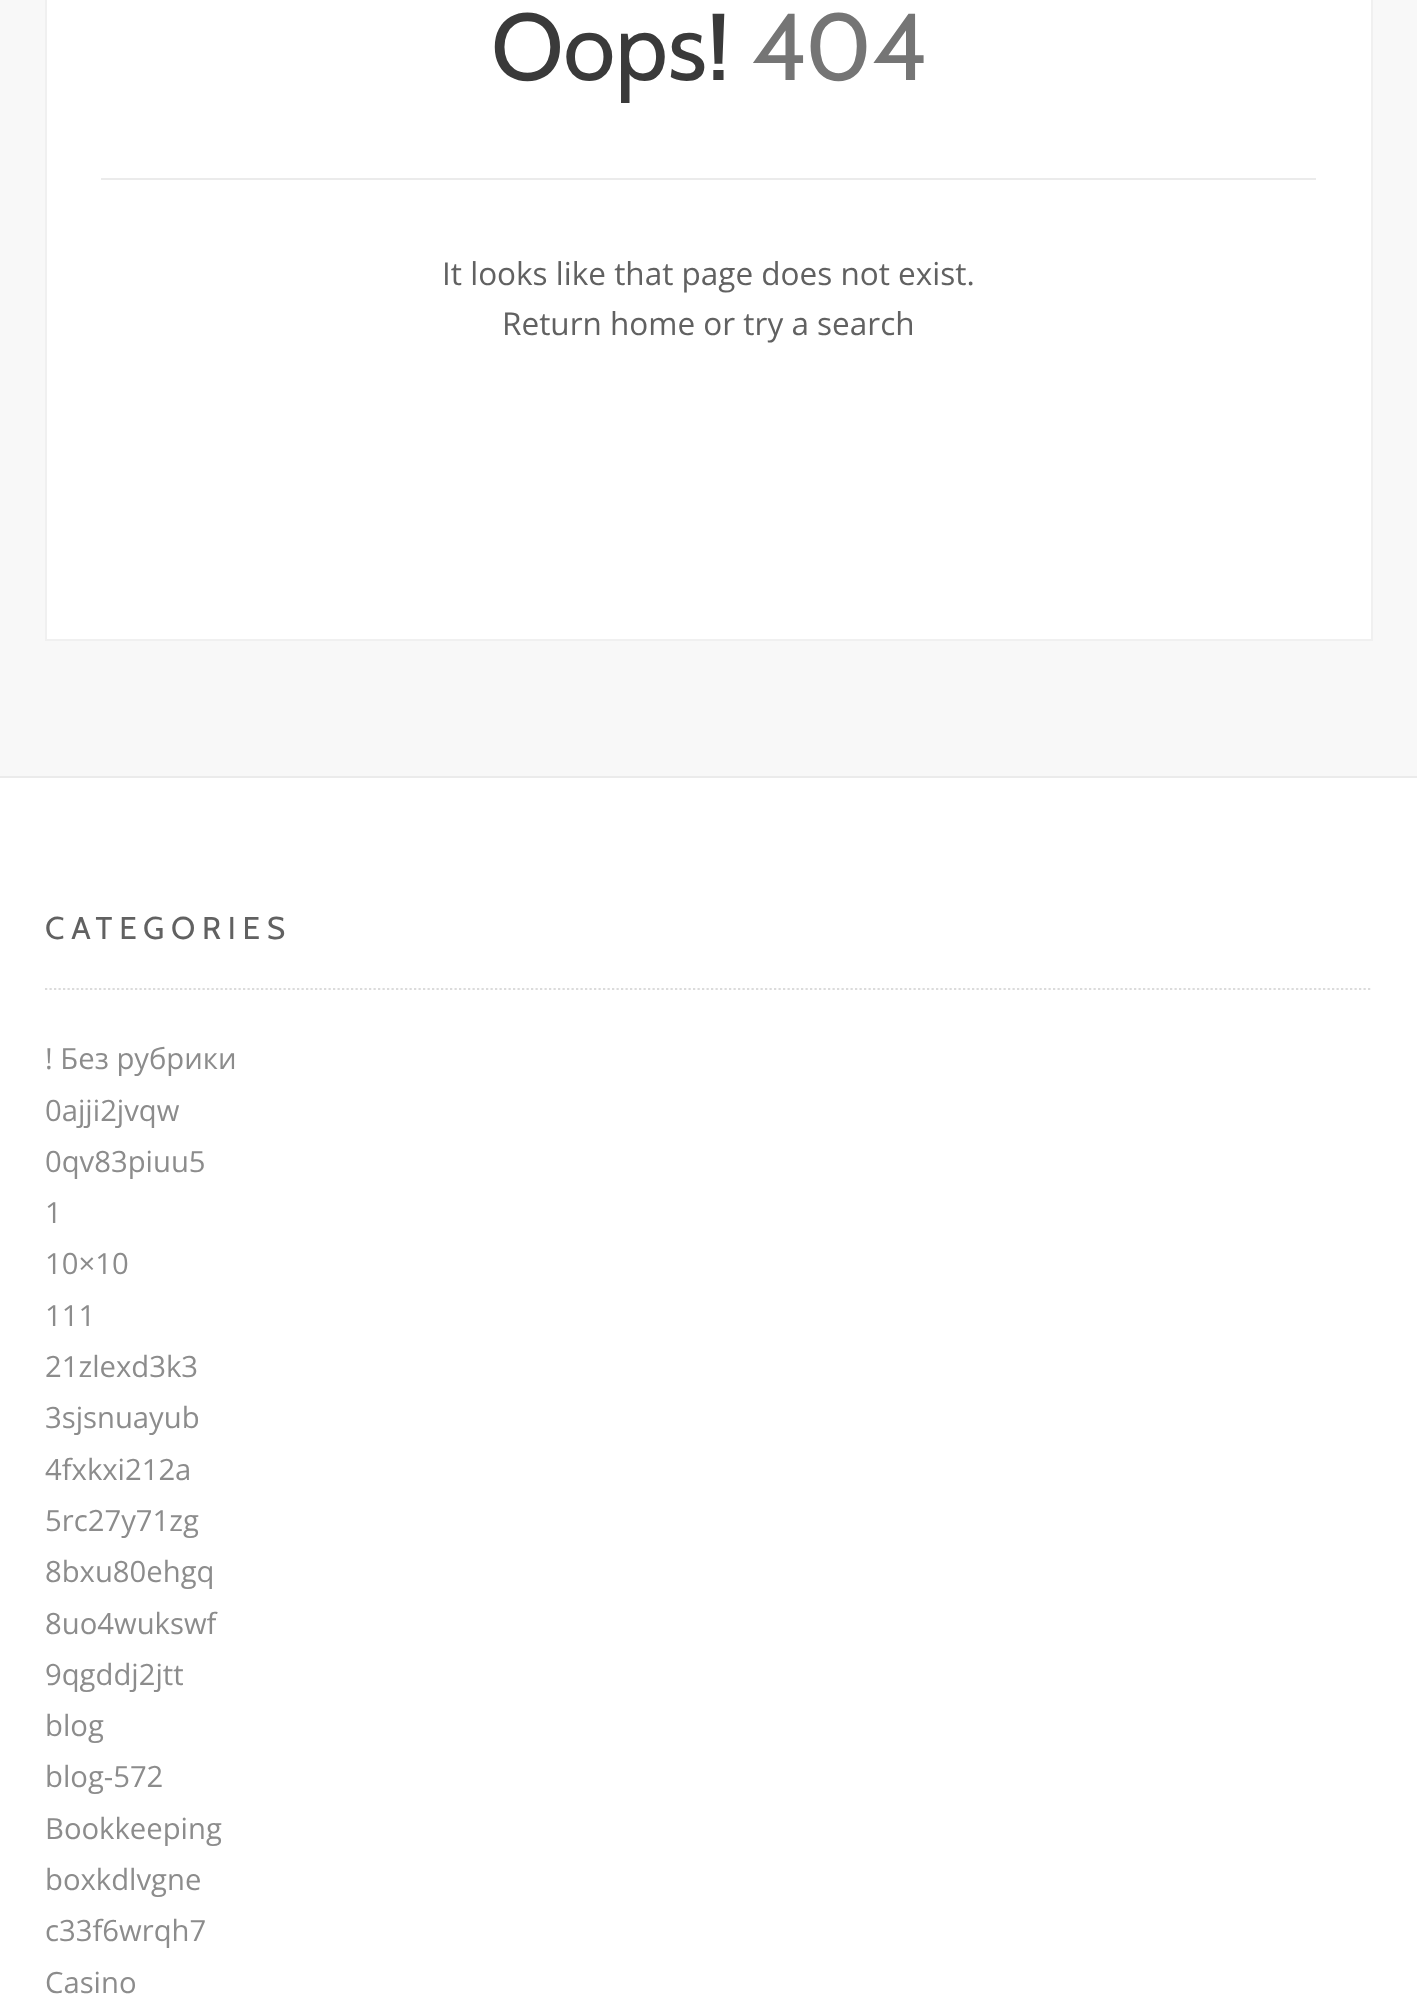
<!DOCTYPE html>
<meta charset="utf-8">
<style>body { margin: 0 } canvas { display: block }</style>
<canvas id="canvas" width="1417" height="2010"></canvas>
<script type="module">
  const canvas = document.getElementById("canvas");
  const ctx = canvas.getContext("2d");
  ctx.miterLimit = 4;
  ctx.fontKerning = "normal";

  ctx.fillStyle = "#f8f8f8";
  ctx.fillRect(0, 0, 1417, 2010);
  ctx.fillStyle = "#ffffff";
  ctx.beginPath();
  ctx.rect(46, -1, 1326, 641);
  ctx.fill();
  ctx.strokeStyle = "#f0f0f0";
  ctx.lineWidth = 2;
  ctx.stroke();
  ctx.fillStyle = "#ebebeb";
  ctx.fillRect(101, 178, 1215, 2);
  ctx.font = "94.5px Cabin";
  ctx.fillStyle = "#3a3a3a";
  ctx.fillText("Oops!", 491, 80);
  ctx.fillStyle = "#757575";
  ctx.fillText("404", 751, 80);
  ctx.font = "31.5px Open Sans";
  ctx.fillStyle = "#616161";
  ctx.fillText("It looks like that page does not exist.", 442, 285);
  ctx.fillText("Return home or try a search", 502, 335);
  ctx.fillStyle = "#ffffff";
  ctx.fillRect(0, 778, 1417, 1232);
  ctx.fillStyle = "#ebebeb";
  ctx.fillRect(0, 776, 1417, 2);
  ctx.beginPath();
  ctx.moveTo(45, 989);
  ctx.lineTo(1372.5, 989);
  ctx.strokeStyle = "#dbdbdb";
  ctx.lineWidth = 2.2;
  ctx.setLineDash([2.25, 2.25]);
  ctx.stroke();
  ctx.letterSpacing = "6.75px";
  ctx.font = "31.5px Cabin";
  ctx.fillStyle = "#616161";
  ctx.fillText("CATEGORIES", 45, 939);
  ctx.letterSpacing = "0px";
  ctx.font = "29.25px Open Sans";
  ctx.fillStyle = "#8c8c8c";
  ctx.fillText("! Без рубрики", 45, 1069);
  ctx.fillText("0ajji2jvqw", 45, 1121);
  ctx.fillText("0qv83piuu5", 45, 1172);
  ctx.fillText("1", 45, 1223);
  ctx.fillText("10×10", 45, 1274);
  ctx.fillText("111", 45, 1326);
  ctx.fillText("21zlexd3k3", 45, 1377);
  ctx.fillText("3sjsnuayub", 45, 1428);
  ctx.fillText("4fxkxi212a", 45, 1480);
  ctx.fillText("5rc27y71zg", 45, 1531);
  ctx.fillText("8bxu80ehgq", 45, 1582);
  ctx.fillText("8uo4wukswf", 45, 1634);
  ctx.fillText("9qgddj2jtt", 45, 1685);
  ctx.fillText("blog", 45, 1736);
  ctx.fillText("blog-572", 45, 1787);
  ctx.fillText("Bookkeeping", 45, 1839);
  ctx.fillText("boxkdlvgne", 45, 1890);
  ctx.fillText("c33f6wrqh7", 45, 1941);
  ctx.fillText("Casino", 45, 1993);
</script>
